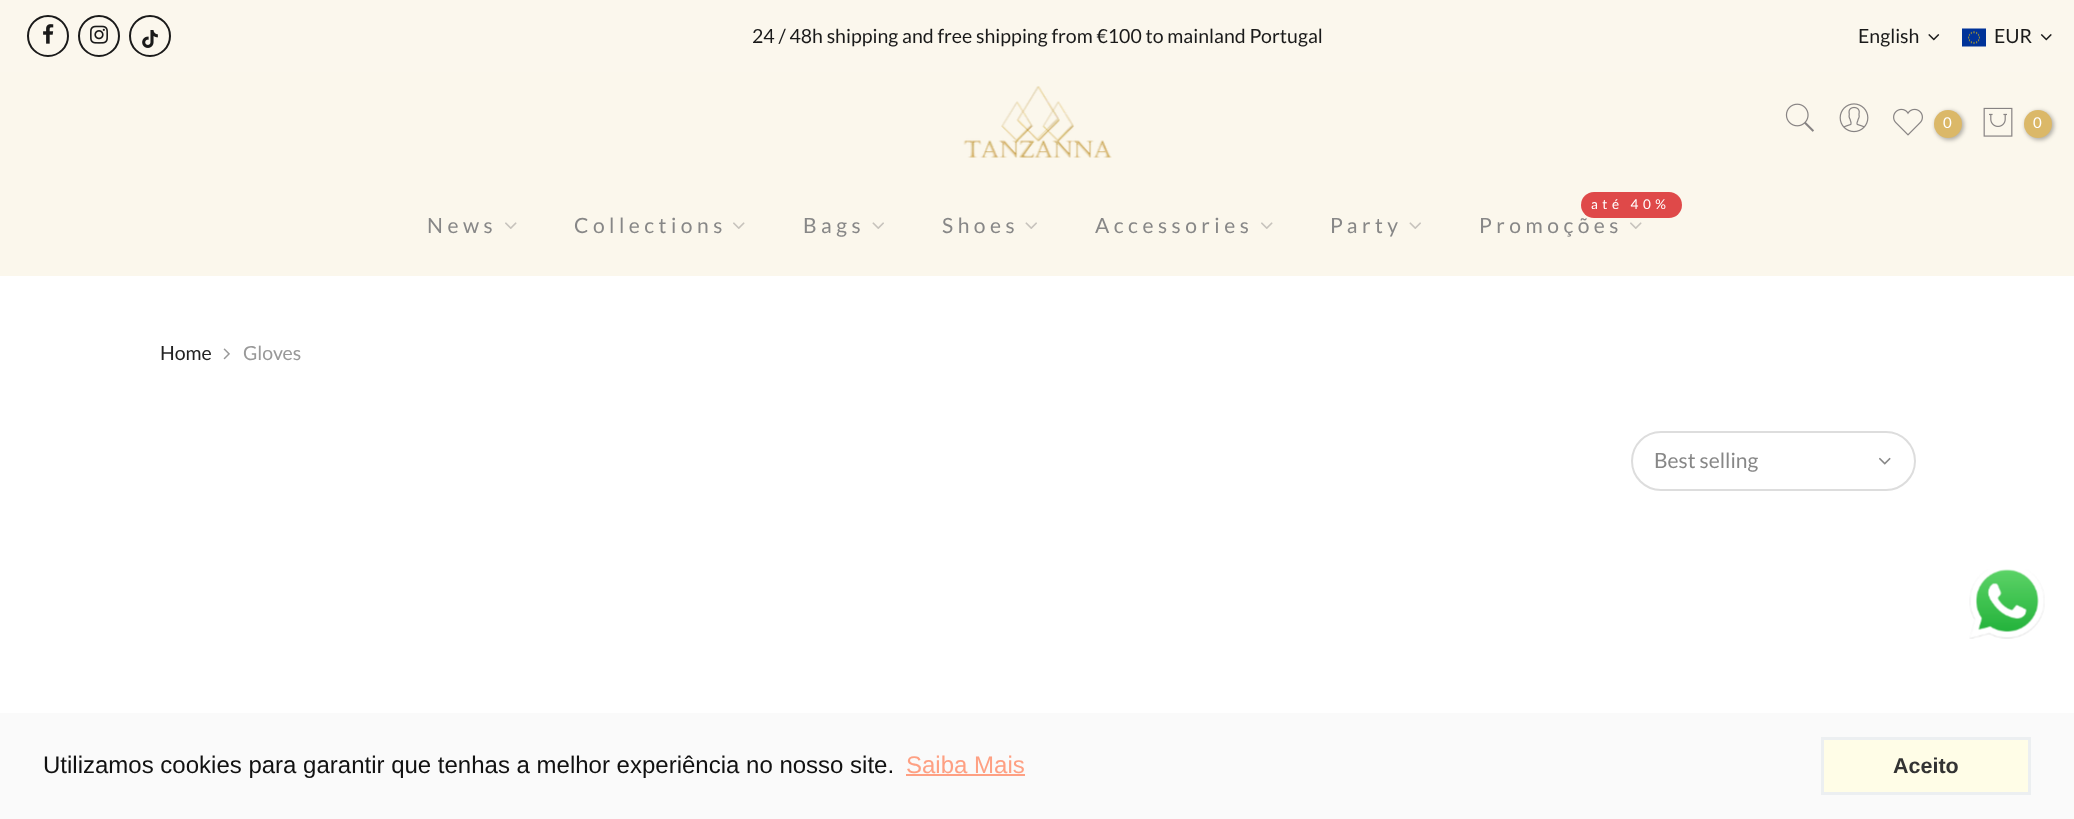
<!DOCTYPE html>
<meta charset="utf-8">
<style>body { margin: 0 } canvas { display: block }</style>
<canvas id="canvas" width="2074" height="819"></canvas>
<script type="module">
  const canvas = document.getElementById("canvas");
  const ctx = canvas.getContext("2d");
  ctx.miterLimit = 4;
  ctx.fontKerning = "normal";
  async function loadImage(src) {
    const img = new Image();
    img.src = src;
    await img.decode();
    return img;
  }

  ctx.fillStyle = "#ffffff";
  ctx.fillRect(0, 0, 2074, 819);
  ctx.fillStyle = "#fbf7ed";
  ctx.fillRect(0, 0, 2074, 72);
  ctx.beginPath();
  ctx.arc(48, 36, 20, 0, Math.PI * 2);
  ctx.strokeStyle = "#1a1a1a";
  ctx.lineWidth = 2;
  ctx.stroke();
  ctx.drawImage(await loadImage("img1.png"), 43, 24, 11, 20);
  ctx.beginPath();
  ctx.arc(99, 36, 20, 0, Math.PI * 2);
  ctx.stroke();
  ctx.drawImage(await loadImage("img2.png"), 90, 25, 18, 19);
  ctx.beginPath();
  ctx.arc(150, 36, 20, 0, Math.PI * 2);
  ctx.stroke();
  ctx.drawImage(await loadImage("img3.png"), 142, 30, 16, 18);
  ctx.font = "19.5px Lato";
  ctx.fillStyle = "#1a1a1a";
  ctx.fillText("24 / 48h shipping and free shipping from €100 to mainland Portugal", 752, 43);
  ctx.fillText("English", 1858, 43);
  ctx.drawImage(await loadImage("img4.png"), 1928, 34, 12, 7);
  ctx.drawImage(await loadImage("img5.png"), 1962, 28, 24, 19);
  ctx.fillText("EUR", 1994, 43);
  ctx.drawImage(await loadImage("img6.png"), 2040, 34, 12, 7);
  ctx.fillStyle = "#fbf7ec";
  ctx.fillRect(0, 72, 2074, 204);
  ctx.drawImage(await loadImage("img7.png"), 963, 86, 149, 72);
  ctx.drawImage(await loadImage("img8.png"), 1785, 103, 29, 29);
  ctx.drawImage(await loadImage("img9.png"), 1839, 103, 30, 30);
  ctx.drawImage(await loadImage("img10.png"), 1893, 108, 30, 28);
  ctx.fillStyle = "rgba(0, 0, 0, 0.3)";
  ctx.filter = "blur(2px)";
  ctx.beginPath();
  ctx.roundRect(1935, 111, 29, 29, 14.5);
  ctx.fill();
  ctx.filter = "none";
  ctx.fillStyle = "#dbb868";
  ctx.beginPath();
  ctx.arc(1948, 124, 14, 0, Math.PI * 2);
  ctx.fill();
  ctx.font = "15px Lato";
  ctx.fillStyle = "#ffffff";
  ctx.fillText("0", 1943, 128);
  ctx.drawImage(await loadImage("img11.png"), 1983, 107, 30, 30);
  ctx.fillStyle = "rgba(0, 0, 0, 0.3)";
  ctx.filter = "blur(2px)";
  ctx.beginPath();
  ctx.roundRect(2025, 111, 29, 29, 14.5);
  ctx.fill();
  ctx.filter = "none";
  ctx.fillStyle = "#dbb868";
  ctx.beginPath();
  ctx.arc(2038, 124, 14, 0, Math.PI * 2);
  ctx.fill();
  ctx.fillStyle = "#ffffff";
  ctx.fillText("0", 2033, 128);
  ctx.letterSpacing = "4.5px";
  ctx.font = "21px Lato";
  ctx.fillStyle = "#878787";
  ctx.fillText("News", 427, 233);
  ctx.drawImage(await loadImage("img12.png"), 505, 222, 12, 7);
  ctx.fillText("Collections", 574, 233);
  ctx.drawImage(await loadImage("img12.png"), 733, 222, 12, 7);
  ctx.fillText("Bags", 803, 233);
  ctx.drawImage(await loadImage("img13.png"), 872, 222, 12, 7);
  ctx.fillText("Shoes", 942, 233);
  ctx.drawImage(await loadImage("img13.png"), 1025, 222, 12, 7);
  ctx.fillText("Accessories", 1095, 233);
  ctx.drawImage(await loadImage("img12.png"), 1261, 222, 12, 7);
  ctx.fillText("Party", 1330, 233);
  ctx.drawImage(await loadImage("img13.png"), 1409, 222, 12, 7);
  ctx.fillText("Promoções", 1479, 233);
  ctx.fillStyle = "#df4949";
  ctx.beginPath();
  ctx.roundRect(1581, 192, 101, 26, 13);
  ctx.fill();
  ctx.font = "13.5px Lato";
  ctx.fillStyle = "#ffffff";
  ctx.fillText("até 40%", 1591, 209);
  ctx.drawImage(await loadImage("img12.png"), 1630, 222, 12, 7);
  ctx.letterSpacing = "0px";
  ctx.font = "19.5px Lato";
  ctx.fillStyle = "#222222";
  ctx.fillText("Home", 160, 360);
  ctx.drawImage(await loadImage("img14.png"), 223, 348, 7, 12);
  ctx.fillStyle = "#999999";
  ctx.fillText("Gloves", 243, 360);
  ctx.beginPath();
  ctx.roundRect(1632, 432, 283, 58, 29);
  ctx.strokeStyle = "#dddddd";
  ctx.stroke();
  ctx.font = "21px Lato";
  ctx.fillStyle = "#878787";
  ctx.fillText("Best selling", 1654, 468);
  ctx.drawImage(await loadImage("img15.png"), 1879, 457, 12, 8);
  ctx.drawImage(await loadImage("img16.png"), 1969, 569, 76, 70);
  ctx.fillStyle = "#fafafa";
  ctx.fillRect(0, 713, 2074, 106);
  ctx.font = "24px Liberation Sans";
  ctx.fillStyle = "#111111";
  ctx.fillText("Utilizamos cookies para garantir que tenhas a melhor experiência no nosso site.", 43, 773);
  ctx.fillStyle = "#fea083";
  ctx.fillText("Saiba Mais", 906, 773);
  ctx.fillRect(906, 774, 119, 2);
  ctx.fillStyle = "#fffde7";
  ctx.beginPath();
  ctx.rect(1822.5, 738.5, 207, 55);
  ctx.fill();
  ctx.strokeStyle = "#eceff1";
  ctx.lineWidth = 3;
  ctx.stroke();
  ctx.font = "bold 21.5px Liberation Sans";
  ctx.fillStyle = "#333333";
  ctx.fillText("Aceito", 1893, 773);
</script>
